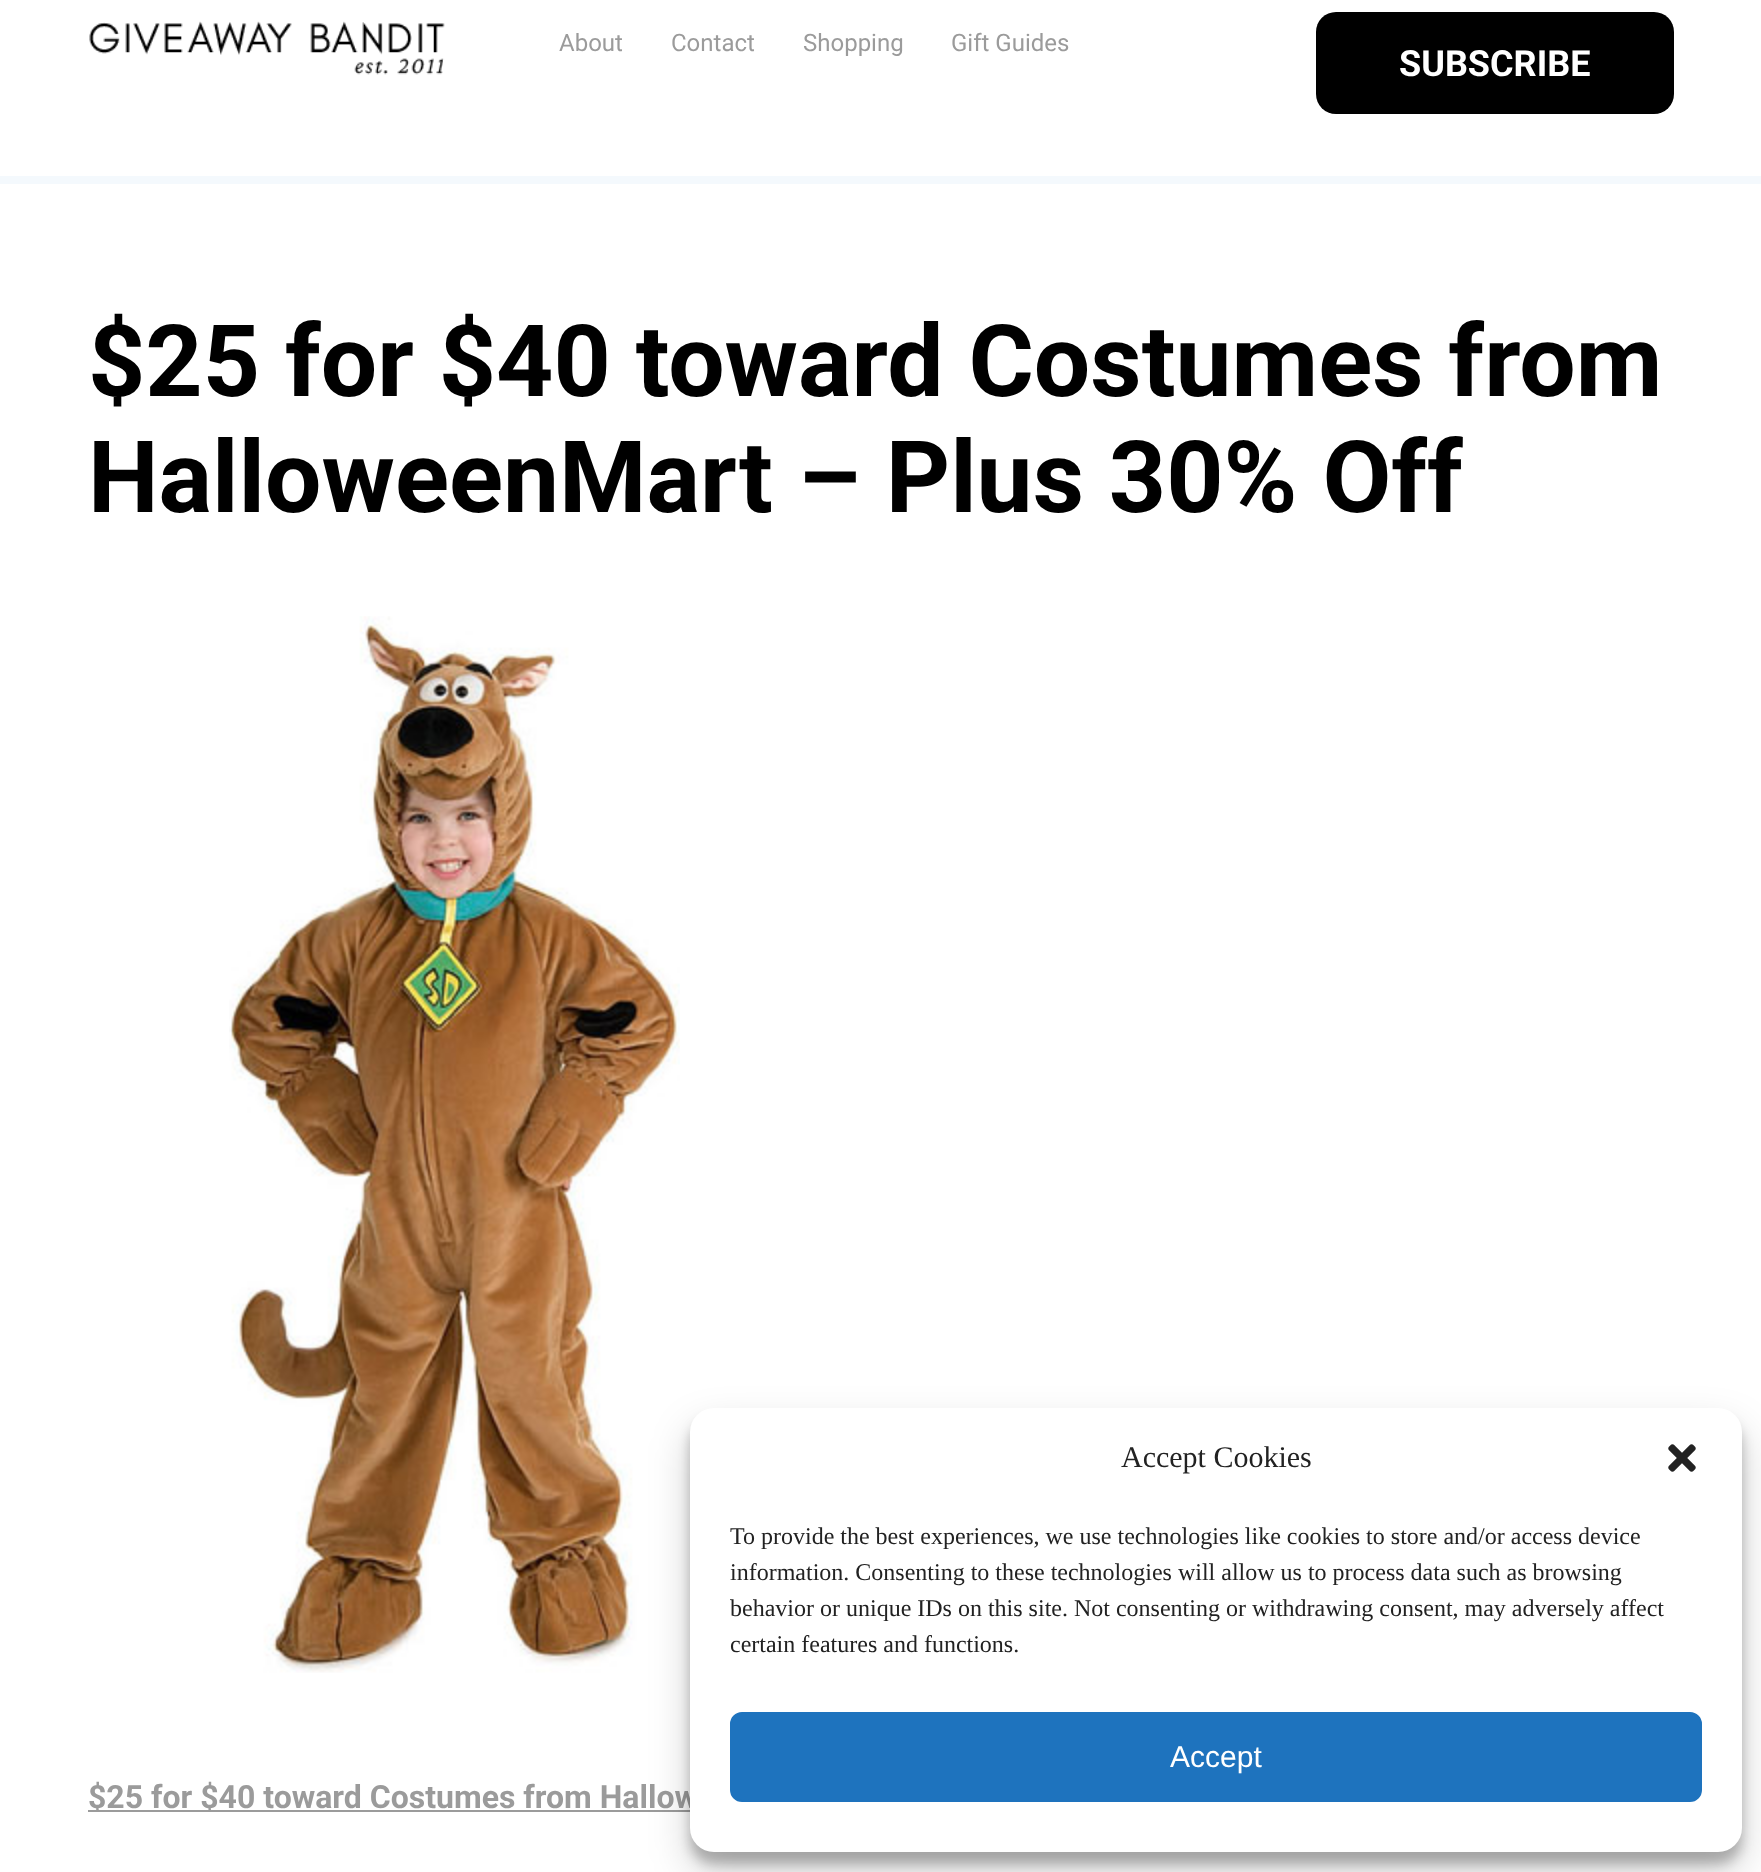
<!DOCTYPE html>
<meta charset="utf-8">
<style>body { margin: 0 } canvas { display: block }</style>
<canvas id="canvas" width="1761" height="1872"></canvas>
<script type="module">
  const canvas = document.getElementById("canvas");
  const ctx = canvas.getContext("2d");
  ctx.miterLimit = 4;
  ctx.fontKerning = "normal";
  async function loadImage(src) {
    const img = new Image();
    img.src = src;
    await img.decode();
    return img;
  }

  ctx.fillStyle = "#ffffff";
  ctx.fillRect(0, 0, 1761, 1872);
  ctx.drawImage(await loadImage("img1.png"), 89, 21, 356, 54);
  ctx.font = "24px Roboto";
  ctx.fillStyle = "#9b9b9b";
  ctx.fillText("About", 559, 51);
  ctx.fillText("Contact", 671, 51);
  ctx.fillText("Shopping", 803, 51);
  ctx.fillText("Gift Guides", 951, 51);
  ctx.fillStyle = "#000000";
  ctx.beginPath();
  ctx.roundRect(1316, 12, 358, 102, 20);
  ctx.fill();
  ctx.font = "bold 36px Roboto";
  ctx.fillStyle = "#ffffff";
  ctx.fillText("SUBSCRIBE", 1399, 76);
  ctx.fillStyle = "#f4f9fd";
  ctx.fillRect(0, 176, 1761, 8);
  ctx.font = "bold 100px Roboto";
  ctx.fillStyle = "#000000";
  ctx.fillText("$25 for $40 toward Costumes from", 88, 396);
  ctx.fillText("HalloweenMart – Plus 30% Off", 88, 512);
  ctx.drawImage(await loadImage("img2.png"), 229, 616, 451, 1057);
  ctx.fillStyle = "#9b9b9b";
  ctx.fillRect(88, 1810, 602, 2);
  ctx.font = "bold 32px Roboto";
  ctx.fillText("$25 for $40 toward Costumes from Hallow", 88, 1808);
  ctx.fillStyle = "rgba(0, 0, 0, 0.23)";
  ctx.filter = "blur(6px)";
  ctx.beginPath();
  ctx.roundRect(690, 1420, 1052, 444, 24);
  ctx.fill();
  ctx.filter = "none";
  ctx.fillStyle = "rgba(0, 0, 0, 0.19)";
  ctx.filter = "blur(20px)";
  ctx.beginPath();
  ctx.roundRect(690, 1428, 1052, 444, 24);
  ctx.fill();
  ctx.filter = "none";
  ctx.fillStyle = "#ffffff";
  ctx.beginPath();
  ctx.roundRect(690, 1408, 1052, 444, 24);
  ctx.fill();
  ctx.font = "30px Liberation Serif";
  ctx.fillStyle = "#222222";
  ctx.fillText("Accept Cookies", 1121, 1467);
  ctx.drawImage(await loadImage("img3.png"), 1668, 1444, 28, 28);
  ctx.font = "24px Liberation Serif";
  ctx.fillText("To provide the best experiences, we use technologies like cookies to store and/or access device", 730, 1544);
  ctx.fillText("information. Consenting to these technologies will allow us to process data such as browsing", 730, 1580);
  ctx.fillText("behavior or unique IDs on this site. Not consenting or withdrawing consent, may adversely affect", 730, 1616);
  ctx.fillText("certain features and functions.", 730, 1652);
  ctx.fillStyle = "#1e73be";
  ctx.beginPath();
  ctx.roundRect(731, 1713, 970, 88, 11);
  ctx.fill();
  ctx.strokeStyle = "#1e73be";
  ctx.lineWidth = 2;
  ctx.stroke();
  ctx.font = "30px Liberation Sans";
  ctx.fillStyle = "#ffffff";
  ctx.fillText("Accept", 1170, 1767);
</script>
